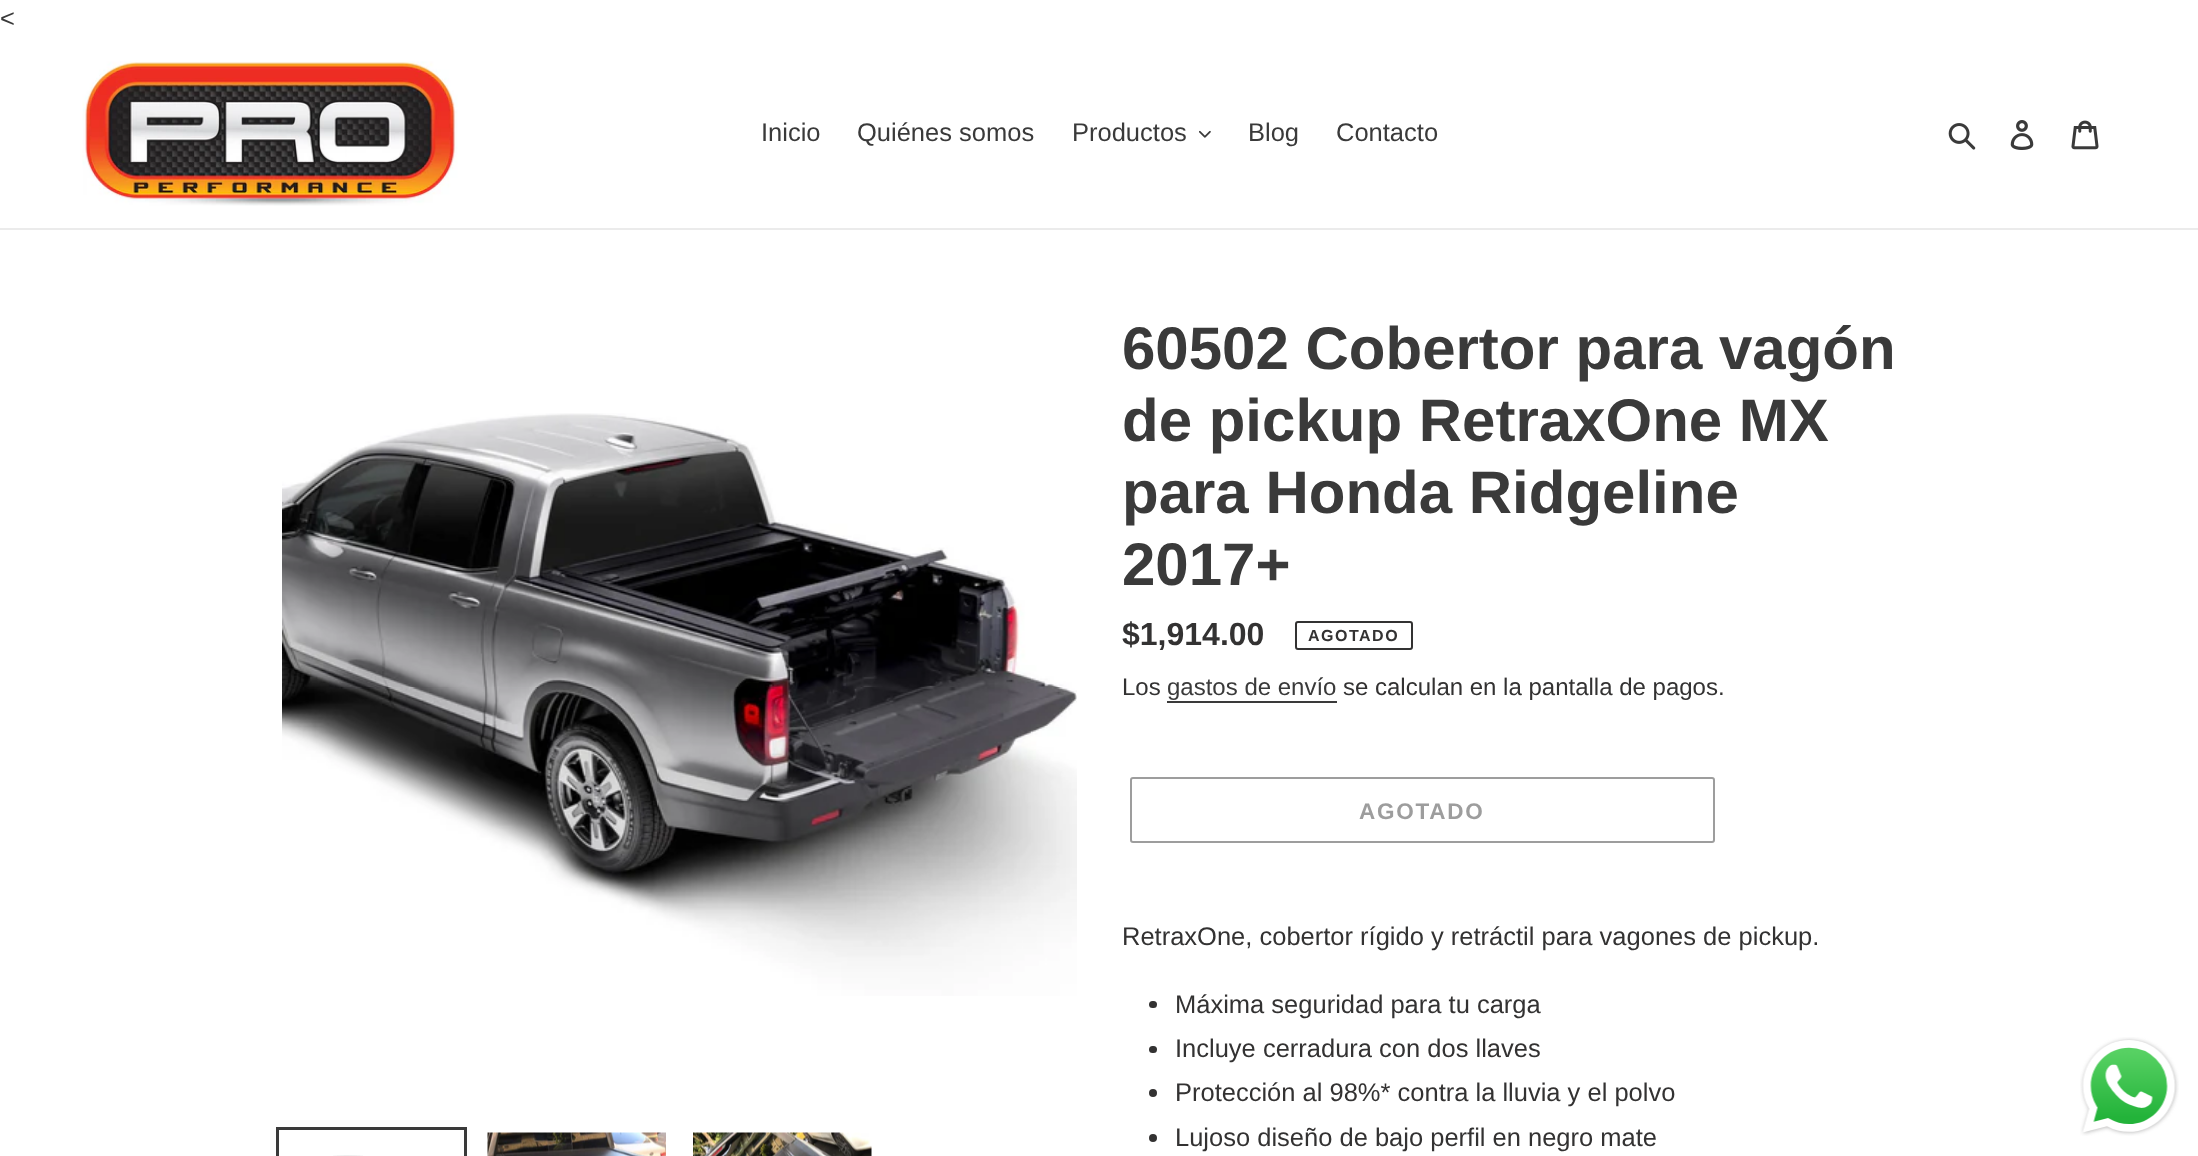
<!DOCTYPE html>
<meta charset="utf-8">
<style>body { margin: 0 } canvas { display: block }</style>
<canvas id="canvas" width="2198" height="1156"></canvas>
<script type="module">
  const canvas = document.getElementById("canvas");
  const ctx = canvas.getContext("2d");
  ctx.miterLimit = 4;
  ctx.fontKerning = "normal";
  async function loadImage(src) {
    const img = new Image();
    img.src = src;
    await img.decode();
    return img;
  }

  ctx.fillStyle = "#ffffff";
  ctx.fillRect(0, 0, 2198, 1156);
  ctx.font = "25.5px Liberation Sans";
  ctx.fillStyle = "#3a3a3a";
  ctx.fillText("<", 0, 27);
  ctx.fillStyle = "#ebebeb";
  ctx.fillRect(0, 228, 2198, 2);
  ctx.drawImage(await loadImage("img1.png"), 82, 61, 376, 145);
  ctx.fillStyle = "#3a3a3a";
  ctx.fillText("Inicio", 761, 141);
  ctx.fillText("Quiénes somos", 857, 141);
  ctx.fillText("Productos", 1072, 141);
  ctx.drawImage(await loadImage("img2.png"), 1199, 130, 12, 8);
  ctx.fillText("Blog", 1248, 141);
  ctx.fillText("Contacto", 1336, 141);
  ctx.drawImage(await loadImage("img3.png"), 1948, 123, 28, 27);
  ctx.drawImage(await loadImage("img4.png"), 2010, 120, 24, 30);
  ctx.drawImage(await loadImage("img5.png"), 2071, 120, 28, 30);
  ctx.drawImage(await loadImage("img6.png"), 282, 413, 795, 583);
  ctx.strokeStyle = "#3a3a3a";
  ctx.lineWidth = 3;
  ctx.strokeRect(277.5, 1128.5, 188, 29);
  ctx.drawImage(await loadImage("img7.png"), 333, 1155, 30, 1);
  ctx.drawImage(await loadImage("img8.png"), 487, 1132, 179, 24);
  ctx.drawImage(await loadImage("img9.png"), 693, 1132, 179, 24);
  ctx.font = "bold 60px Liberation Sans";
  ctx.fillText("60502 Cobertor para vagón", 1122, 369);
  ctx.fillText("de pickup RetraxOne MX", 1122, 441);
  ctx.fillText("para Honda Ridgeline", 1122, 513);
  ctx.fillText("2017+", 1122, 585);
  ctx.font = "bold 32px Liberation Sans";
  ctx.fillStyle = "#333232";
  ctx.fillText("$1,914.00", 1122, 645);
  ctx.beginPath();
  ctx.roundRect(1296, 622, 116, 27, 2);
  ctx.strokeStyle = "#333232";
  ctx.lineWidth = 2;
  ctx.stroke();
  ctx.letterSpacing = "1.5px";
  ctx.font = "bold 16px Liberation Sans";
  ctx.fillText("AGOTADO", 1308, 641);
  ctx.letterSpacing = "0px";
  ctx.font = "24px Liberation Sans";
  ctx.fillText("Los", 1122, 695);
  ctx.fillStyle = "#3a3a3a";
  ctx.fillText("gastos de envío", 1167, 695);
  ctx.fillRect(1167, 701, 170, 2);
  ctx.fillStyle = "#333232";
  ctx.fillText("se calculan en la pantalla de pagos.", 1343, 695);
  ctx.beginPath();
  ctx.roundRect(1131, 778, 583, 64, 2);
  ctx.strokeStyle = "#9d9d9d";
  ctx.stroke();
  ctx.letterSpacing = "1.75px";
  ctx.font = "bold 22.5px Liberation Sans";
  ctx.fillStyle = "#9d9d9d";
  ctx.fillText("AGOTADO", 1359, 819);
  ctx.letterSpacing = "0px";
  ctx.font = "25.5px Liberation Sans";
  ctx.fillStyle = "#333232";
  ctx.fillText("RetraxOne, cobertor rígido y retráctil para vagones de pickup.", 1122, 945);
  ctx.beginPath();
  ctx.roundRect(1149, 1001, 8, 7, 3.5);
  ctx.fill();
  ctx.fillText("Máxima seguridad para tu carga", 1175, 1013);
  ctx.beginPath();
  ctx.roundRect(1149, 1046, 8, 7, 3.5);
  ctx.fill();
  ctx.fillText("Incluye cerradura con dos llaves", 1175, 1057);
  ctx.beginPath();
  ctx.arc(1153, 1093, 4, 0, Math.PI * 2);
  ctx.fill();
  ctx.fillText("Protección al 98%* contra la lluvia y el polvo", 1175, 1101);
  ctx.beginPath();
  ctx.arc(1153, 1138, 4, 0, Math.PI * 2);
  ctx.fill();
  ctx.fillText("Lujoso diseño de bajo perfil en negro mate", 1175, 1146);
  ctx.drawImage(await loadImage("img10.png"), 2080, 1037, 99, 99);
</script>
